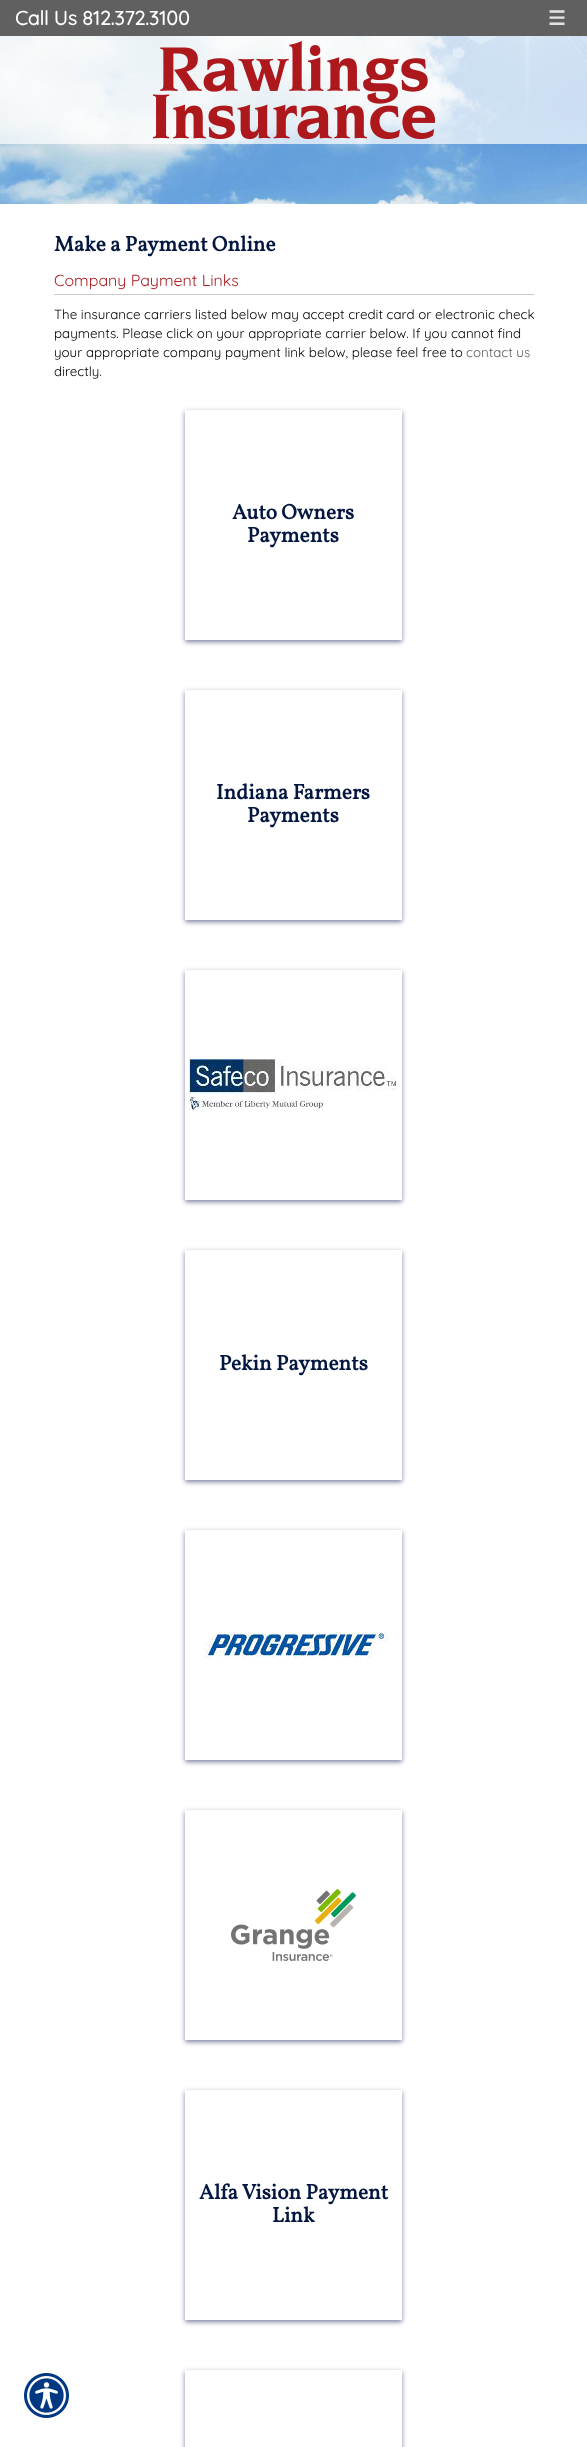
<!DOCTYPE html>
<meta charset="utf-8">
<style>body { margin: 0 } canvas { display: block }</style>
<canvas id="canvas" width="587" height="2447"></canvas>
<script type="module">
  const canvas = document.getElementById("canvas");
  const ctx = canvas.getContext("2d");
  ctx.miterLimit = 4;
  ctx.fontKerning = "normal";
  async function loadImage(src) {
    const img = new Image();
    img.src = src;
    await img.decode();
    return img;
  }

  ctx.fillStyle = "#ffffff";
  ctx.fillRect(0, 0, 587, 2447);
  ctx.drawImage(await loadImage("img2.png"), 0, 36, 587, 168);
  ctx.fillStyle = "rgba(255, 255, 255, 0.7)";
  ctx.fillRect(0, 36, 587, 108);
  ctx.fillStyle = "#606060";
  ctx.fillRect(0, 0, 587, 36);
  ctx.font = "bold 19.5px Quicksand";
  ctx.fillStyle = "#ffffff";
  ctx.fillText("Call Us 812.372.3100", 15, 25);
  ctx.font = "bold 19.5px DejaVu Sans";
  ctx.fillStyle = "#e2e2e2";
  ctx.fillText("☰", 548, 25);
  ctx.drawImage(await loadImage("img1.png"), 153, 41, 282, 98);
  ctx.font = "bold 21.25px Vollkorn";
  ctx.fillStyle = "#041741";
  ctx.fillText("Make a Payment Online", 54, 251);
  ctx.fillStyle = "#cccccc";
  ctx.fillRect(54, 294, 480, 1);
  ctx.font = "300 16px Quicksand";
  ctx.fillStyle = "#ab1e22";
  ctx.fillText("Company Payment Links", 54, 286);
  ctx.font = "300 13.35px Quicksand";
  ctx.fillStyle = "#000000";
  ctx.fillText("The insurance carriers listed below may accept credit card or electronic check", 54, 319);
  ctx.fillText("payments. Please click on your appropriate carrier below. If you cannot find", 54, 338);
  ctx.fillText("your appropriate company payment link below, please feel free to", 54, 357);
  ctx.fillStyle = "#606060";
  ctx.fillText("contact us", 466, 357);
  ctx.fillStyle = "#000000";
  ctx.fillText("directly.", 54, 376);
  ctx.save();
  ctx.beginPath();
  ctx.moveTo(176, 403);
  ctx.lineTo(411, 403);
  ctx.lineTo(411, 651);
  ctx.lineTo(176, 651);
  ctx.closePath();
  ctx.moveTo(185, 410);
  ctx.lineTo(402, 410);
  ctx.lineTo(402, 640);
  ctx.lineTo(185, 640);
  ctx.closePath();
  ctx.clip("evenodd");
  ctx.fillStyle = "rgba(0, 0, 68, 0.5)";
  ctx.filter = "blur(2.5px)";
  ctx.beginPath();
  ctx.rect(185, 412, 217, 230);
  ctx.fill();
  ctx.filter = "none";
  ctx.restore();
  ctx.font = "bold 21.25px Vollkorn";
  ctx.fillStyle = "#041741";
  ctx.fillText("Auto Owners", 232, 519);
  ctx.fillText("Payments", 247, 542);
  ctx.save();
  ctx.beginPath();
  ctx.moveTo(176, 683);
  ctx.lineTo(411, 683);
  ctx.lineTo(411, 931);
  ctx.lineTo(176, 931);
  ctx.closePath();
  ctx.moveTo(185, 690);
  ctx.lineTo(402, 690);
  ctx.lineTo(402, 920);
  ctx.lineTo(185, 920);
  ctx.closePath();
  ctx.clip("evenodd");
  ctx.fillStyle = "rgba(0, 0, 68, 0.5)";
  ctx.filter = "blur(2.5px)";
  ctx.beginPath();
  ctx.rect(185, 692, 217, 230);
  ctx.fill();
  ctx.filter = "none";
  ctx.restore();
  ctx.fillText("Indiana Farmers", 216, 799);
  ctx.fillText("Payments", 247, 822);
  ctx.save();
  ctx.beginPath();
  ctx.moveTo(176, 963);
  ctx.lineTo(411, 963);
  ctx.lineTo(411, 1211);
  ctx.lineTo(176, 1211);
  ctx.closePath();
  ctx.moveTo(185, 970);
  ctx.lineTo(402, 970);
  ctx.lineTo(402, 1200);
  ctx.lineTo(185, 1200);
  ctx.closePath();
  ctx.clip("evenodd");
  ctx.fillStyle = "rgba(0, 0, 68, 0.5)";
  ctx.filter = "blur(2.5px)";
  ctx.beginPath();
  ctx.rect(185, 972, 217, 230);
  ctx.fill();
  ctx.filter = "none";
  ctx.restore();
  ctx.drawImage(await loadImage("img3.png"), 188, 1059, 208, 52);
  ctx.save();
  ctx.beginPath();
  ctx.moveTo(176, 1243);
  ctx.lineTo(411, 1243);
  ctx.lineTo(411, 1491);
  ctx.lineTo(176, 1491);
  ctx.closePath();
  ctx.moveTo(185, 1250);
  ctx.lineTo(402, 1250);
  ctx.lineTo(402, 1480);
  ctx.lineTo(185, 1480);
  ctx.closePath();
  ctx.clip("evenodd");
  ctx.fillStyle = "rgba(0, 0, 68, 0.5)";
  ctx.filter = "blur(2.5px)";
  ctx.beginPath();
  ctx.rect(185, 1252, 217, 230);
  ctx.fill();
  ctx.filter = "none";
  ctx.restore();
  ctx.fillText("Pekin Payments", 219, 1370);
  ctx.save();
  ctx.beginPath();
  ctx.moveTo(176, 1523);
  ctx.lineTo(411, 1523);
  ctx.lineTo(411, 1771);
  ctx.lineTo(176, 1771);
  ctx.closePath();
  ctx.moveTo(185, 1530);
  ctx.lineTo(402, 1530);
  ctx.lineTo(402, 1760);
  ctx.lineTo(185, 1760);
  ctx.closePath();
  ctx.clip("evenodd");
  ctx.fillStyle = "rgba(0, 0, 68, 0.5)";
  ctx.filter = "blur(2.5px)";
  ctx.beginPath();
  ctx.rect(185, 1532, 217, 230);
  ctx.fill();
  ctx.filter = "none";
  ctx.restore();
  ctx.drawImage(await loadImage("img4.png"), 204, 1629, 187, 29);
  ctx.save();
  ctx.beginPath();
  ctx.moveTo(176, 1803);
  ctx.lineTo(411, 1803);
  ctx.lineTo(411, 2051);
  ctx.lineTo(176, 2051);
  ctx.closePath();
  ctx.moveTo(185, 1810);
  ctx.lineTo(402, 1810);
  ctx.lineTo(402, 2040);
  ctx.lineTo(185, 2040);
  ctx.closePath();
  ctx.clip("evenodd");
  ctx.fillStyle = "rgba(0, 0, 68, 0.5)";
  ctx.filter = "blur(2.5px)";
  ctx.beginPath();
  ctx.rect(185, 1812, 217, 230);
  ctx.fill();
  ctx.filter = "none";
  ctx.restore();
  ctx.drawImage(await loadImage("img5.png"), 231, 1889, 125, 72);
  ctx.save();
  ctx.beginPath();
  ctx.moveTo(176, 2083);
  ctx.lineTo(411, 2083);
  ctx.lineTo(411, 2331);
  ctx.lineTo(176, 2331);
  ctx.closePath();
  ctx.moveTo(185, 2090);
  ctx.lineTo(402, 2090);
  ctx.lineTo(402, 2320);
  ctx.lineTo(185, 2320);
  ctx.closePath();
  ctx.clip("evenodd");
  ctx.fillStyle = "rgba(0, 0, 68, 0.5)";
  ctx.filter = "blur(2.5px)";
  ctx.beginPath();
  ctx.rect(185, 2092, 217, 230);
  ctx.fill();
  ctx.filter = "none";
  ctx.restore();
  ctx.fillText("Alfa Vision Payment", 199, 2199);
  ctx.fillText("Link", 272, 2222);
  ctx.save();
  ctx.beginPath();
  ctx.moveTo(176, 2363);
  ctx.lineTo(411, 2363);
  ctx.lineTo(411, 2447);
  ctx.lineTo(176, 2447);
  ctx.closePath();
  ctx.moveTo(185, 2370);
  ctx.lineTo(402, 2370);
  ctx.lineTo(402, 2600);
  ctx.lineTo(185, 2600);
  ctx.closePath();
  ctx.clip("evenodd");
  ctx.fillStyle = "rgba(0, 0, 68, 0.5)";
  ctx.filter = "blur(2.5px)";
  ctx.beginPath();
  ctx.rect(185, 2372, 217, 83);
  ctx.fill();
  ctx.filter = "none";
  ctx.restore();
  ctx.drawImage(await loadImage("img6.png"), 24, 2373, 45, 45);
</script>
